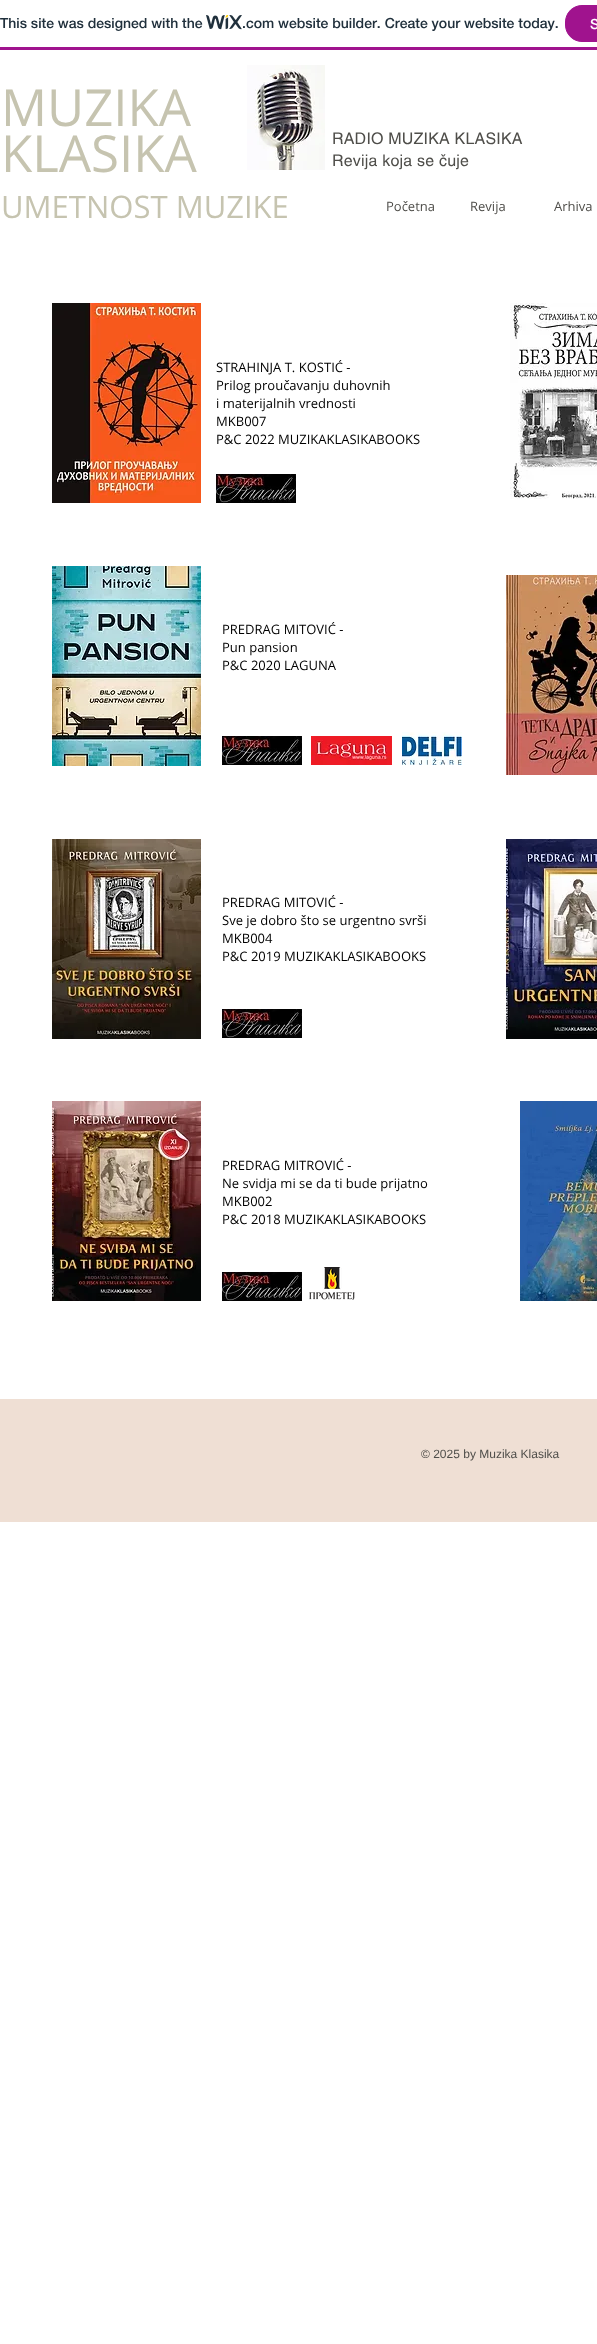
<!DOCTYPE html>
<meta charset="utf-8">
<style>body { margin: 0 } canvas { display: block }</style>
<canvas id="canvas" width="597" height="2344"></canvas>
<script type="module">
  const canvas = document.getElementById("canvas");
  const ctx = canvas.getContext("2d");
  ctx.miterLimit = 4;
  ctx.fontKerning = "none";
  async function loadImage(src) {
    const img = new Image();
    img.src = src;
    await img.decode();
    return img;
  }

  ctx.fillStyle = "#ffffff";
  ctx.fillRect(0, 0, 597, 2344);
  ctx.fillStyle = "#a0138e";
  ctx.fillRect(0, 47, 597, 3);
  ctx.font = "500 14px 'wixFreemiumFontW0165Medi'";
  ctx.fillStyle = "#20303c";
  ctx.fillText("This site was designed with the", 0, 28);
  ctx.drawImage(await loadImage("img1.png"), 206, 15, 36, 15);
  ctx.fillText(".com website builder. Create your website today.", 242, 28);
  ctx.fillStyle = "#a0138e";
  ctx.beginPath();
  ctx.roundRect(565.5, 5.5, 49, 36, 16.5);
  ctx.fill();
  ctx.strokeStyle = "#a0138e";
  ctx.stroke();
  ctx.fillStyle = "#ffffff";
  ctx.fillText("S", 590, 29);
  ctx.drawImage(await loadImage("img2.png"), 247, 65, 78, 105);
  ctx.font = "51px Open Sans";
  ctx.fillStyle = "#c6c4b0";
  ctx.fillText("MUZIKA", 1, 126);
  ctx.fillText("KLASIKA", 1, 172);
  ctx.font = "31px Open Sans";
  ctx.fillText("UMETNOST MUZIKE", 1, 218);
  ctx.letterSpacing = "0.2px";
  ctx.font = "16px helvetica";
  ctx.fillStyle = "#4f4e4a";
  ctx.fillText("RADIO MUZIKA KLASIKA", 332, 144);
  ctx.fillText("Revija koja se čuje", 332, 166);
  ctx.letterSpacing = "0px";
  ctx.font = "13px Open Sans";
  ctx.fillText("Početna", 386, 211);
  ctx.fillText("Revija", 470, 211);
  ctx.fillText("Arhiva", 554, 211);
  ctx.drawImage(await loadImage("img3.png"), 52, 303, 149, 200);
  ctx.fillStyle = "#000000";
  ctx.fillText("STRAHINJA T. KOSTIĆ -", 216, 372);
  ctx.fillText("Prilog proučavanju duhovnih", 216, 390);
  ctx.fillText("i materijalnih vrednosti", 216, 408);
  ctx.fillText("MKB007", 216, 426);
  ctx.fillText("P&C 2022 MUZIKAKLASIKABOOKS", 216, 444);
  ctx.drawImage(await loadImage("img4.png"), 510, 303, 87, 196);
  ctx.drawImage(await loadImage("img5.png"), 216, 474, 80, 29);
  ctx.drawImage(await loadImage("img6.png"), 52, 566, 149, 200);
  ctx.fillText("PREDRAG MITOVIĆ -", 222, 634);
  ctx.fillText("Pun pansion", 222, 652);
  ctx.fillText("P&C 2020 LAGUNA", 222, 670);
  ctx.drawImage(await loadImage("img7.png"), 506, 575, 91, 200);
  ctx.drawImage(await loadImage("img5.png"), 222, 736, 80, 29);
  ctx.drawImage(await loadImage("img8.png"), 311, 736, 81, 29);
  ctx.drawImage(await loadImage("img9.png"), 402, 732, 60, 33);
  ctx.drawImage(await loadImage("img10.png"), 52, 839, 149, 200);
  ctx.fillText("PREDRAG MITOVIĆ -", 222, 907);
  ctx.fillText("Sve je dobro što se urgentno svrši", 222, 925);
  ctx.fillText("MKB004", 222, 943);
  ctx.fillText("P&C 2019 MUZIKAKLASIKABOOKS", 222, 961);
  ctx.drawImage(await loadImage("img11.png"), 506, 839, 91, 200);
  ctx.drawImage(await loadImage("img5.png"), 222, 1009, 80, 29);
  ctx.drawImage(await loadImage("img12.png"), 52, 1101, 149, 200);
  ctx.fillText("PREDRAG MITROVIĆ -", 222, 1170);
  ctx.fillText("Ne svidja mi se da ti bude prijatno", 222, 1188);
  ctx.fillText("MKB002", 222, 1206);
  ctx.fillText("P&C 2018 MUZIKAKLASIKABOOKS", 222, 1224);
  ctx.drawImage(await loadImage("img13.png"), 520, 1101, 77, 200);
  ctx.drawImage(await loadImage("img5.png"), 222, 1272, 80, 29);
  ctx.drawImage(await loadImage("img14.png"), 309, 1267, 46, 33);
  ctx.fillStyle = "#efdfd4";
  ctx.fillRect(0, 1399, 597, 123);
  ctx.font = "12px Liberation Sans";
  ctx.fillStyle = "#4f4e4a";
  ctx.fillText("© 2025 by Muzika Klasika", 421, 1458);
</script>
